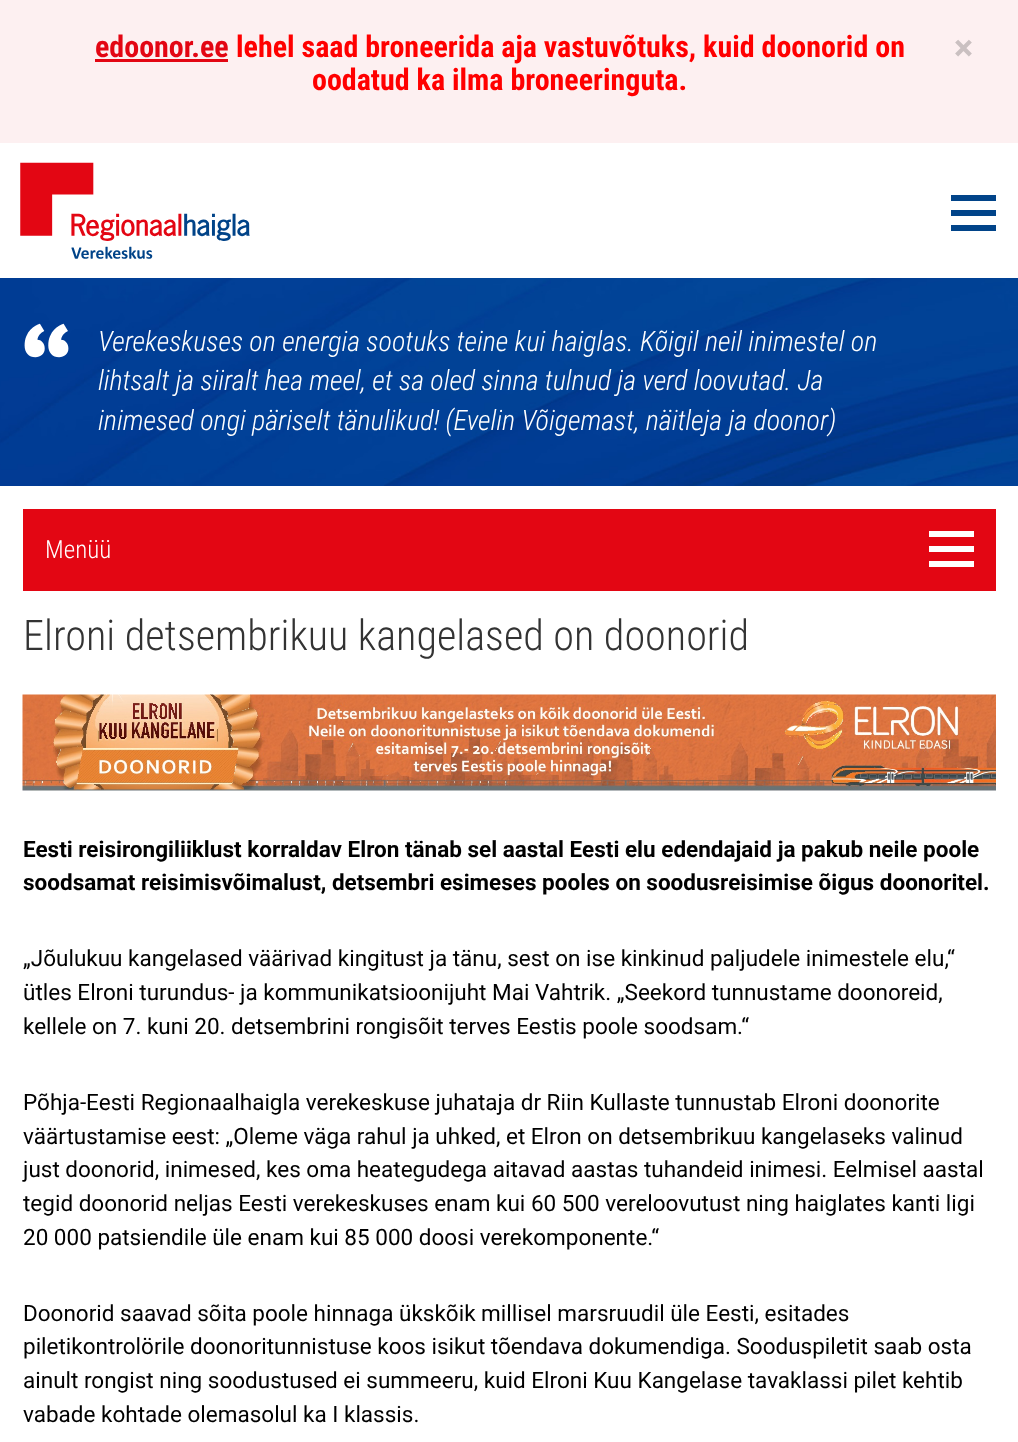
<!DOCTYPE html>
<meta charset="utf-8">
<style>body { margin: 0 } canvas { display: block }</style>
<canvas id="canvas" width="1018" height="1442"></canvas>
<script type="module">
  const canvas = document.getElementById("canvas");
  const ctx = canvas.getContext("2d");
  ctx.miterLimit = 4;
  ctx.fontKerning = "normal";
  async function loadImage(src) {
    const img = new Image();
    img.src = src;
    await img.decode();
    return img;
  }

  ctx.fillStyle = "#ffffff";
  ctx.fillRect(0, 0, 1018, 1442);
  ctx.fillStyle = "#fdf0f1";
  ctx.fillRect(0, 0, 1018, 143);
  ctx.font = "bold 30px Roboto Condensed";
  ctx.fillStyle = "#e30613";
  ctx.fillText("edoonor.ee", 95, 57);
  ctx.fillRect(95, 59, 133, 3);
  ctx.fillStyle = "#ff0000";
  ctx.fillText("lehel saad broneerida aja vastuvõtuks, kuid doonorid on", 236, 57);
  ctx.fillText("oodatud ka ilma broneeringuta.", 312, 90);
  ctx.font = "bold 36px Roboto";
  ctx.fillStyle = "#cac0c1";
  ctx.fillText("×", 954, 60);
  ctx.drawImage(await loadImage("img1.png"), 20, 162, 230, 97);
  ctx.fillStyle = "#014489";
  ctx.fillRect(951, 195, 45, 6);
  ctx.fillRect(951, 210, 45, 6);
  ctx.fillRect(951, 225, 45, 6);
  ctx.drawImage(await loadImage("img2.png"), 0, 278, 1018, 208);
  ctx.drawImage(await loadImage("img3.png"), 24, 323, 45, 35);
  ctx.font = "italic 300 28.1px Roboto Condensed";
  ctx.fillStyle = "#ffffff";
  ctx.fillText("Verekeskuses on energia sootuks teine kui haiglas. Kõigil neil inimestel on", 98, 351);
  ctx.fillText("lihtsalt ja siiralt hea meel, et sa oled sinna tulnud ja verd loovutad. Ja", 98, 390);
  ctx.fillText("inimesed ongi päriselt tänulikud! (Evelin Võigemast, näitleja ja doonor)", 98, 430);
  ctx.fillStyle = "#e30613";
  ctx.fillRect(23, 509, 973, 82);
  ctx.font = "300 25px Roboto Condensed";
  ctx.fillStyle = "#ffffff";
  ctx.fillText("Menüü", 45, 558);
  ctx.fillRect(929, 531, 45, 6);
  ctx.fillRect(929, 546, 45, 6);
  ctx.fillRect(929, 561, 45, 6);
  ctx.font = "300 42.2px Roboto Condensed";
  ctx.fillStyle = "#333333";
  ctx.fillText("Elroni detsembrikuu kangelased on doonorid", 23, 650);
  ctx.drawImage(await loadImage("img4.png"), 22, 694, 974, 97);
  ctx.font = "bold 22.5px Roboto";
  ctx.fillStyle = "#000000";
  ctx.fillText("Eesti reisirongiliiklust korraldav Elron tänab sel aastal Eesti elu edendajaid ja pakub neile poole", 23, 857);
  ctx.fillText("soodsamat reisimisvõimalust, detsembri esimeses pooles on soodusreisimise õigus doonoritel.", 23, 890);
  ctx.font = "22.5px Roboto";
  ctx.fillText("„Jõulukuu kangelased väärivad kingitust ja tänu, sest on ise kinkinud paljudele inimestele elu,“", 23, 966);
  ctx.fillText("ütles Elroni turundus- ja kommunikatsioonijuht Mai Vahtrik. „Seekord tunnustame doonoreid,", 23, 1000);
  ctx.fillText("kellele on 7. kuni 20. detsembrini rongisõit terves Eestis poole soodsam.“", 23, 1034);
  ctx.fillText("Põhja-Eesti Regionaalhaigla verekeskuse juhataja dr Riin Kullaste tunnustab Elroni doonorite", 23, 1110);
  ctx.fillText("väärtustamise eest: „Oleme väga rahul ja uhked, et Elron on detsembrikuu kangelaseks valinud", 23, 1144);
  ctx.fillText("just doonorid, inimesed, kes oma heategudega aitavad aastas tuhandeid inimesi. Eelmisel aastal", 23, 1177);
  ctx.fillText("tegid doonorid neljas Eesti verekeskuses enam kui 60 500 vereloovutust ning haiglates kanti ligi", 23, 1211);
  ctx.fillText("20 000 patsiendile üle enam kui 85 000 doosi verekomponente.“", 23, 1245);
  ctx.fillText("Doonorid saavad sõita poole hinnaga ükskõik millisel marsruudil üle Eesti, esitades", 23, 1321);
  ctx.fillText("piletikontrolörile doonoritunnistuse koos isikut tõendava dokumendiga. Sooduspiletit saab osta", 23, 1354);
  ctx.fillText("ainult rongist ning soodustused ei summeeru, kuid Elroni Kuu Kangelase tavaklassi pilet kehtib", 23, 1388);
  ctx.fillText("vabade kohtade olemasolul ka I klassis.", 23, 1422);
</script>
